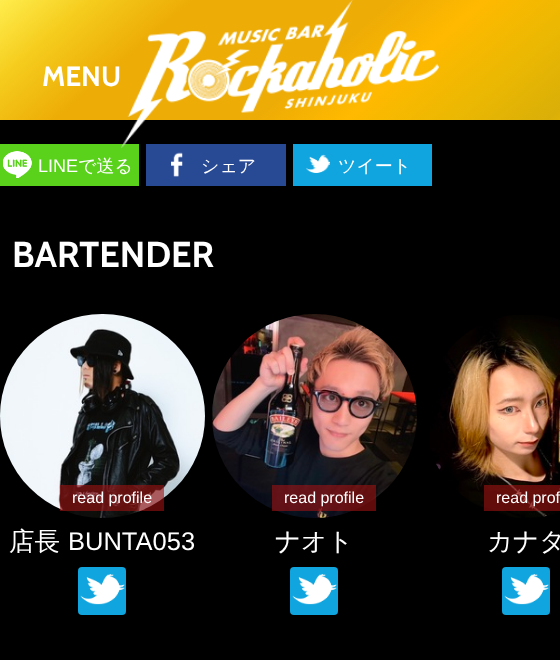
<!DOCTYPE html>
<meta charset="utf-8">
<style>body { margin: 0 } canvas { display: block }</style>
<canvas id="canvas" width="560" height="660"></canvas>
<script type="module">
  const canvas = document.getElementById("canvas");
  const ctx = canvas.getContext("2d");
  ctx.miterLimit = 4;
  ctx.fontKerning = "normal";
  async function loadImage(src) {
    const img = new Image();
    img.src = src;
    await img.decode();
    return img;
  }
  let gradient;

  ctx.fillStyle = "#000000";
  ctx.fillRect(0, 0, 560, 660);
  gradient = ctx.createLinearGradient(153, -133, 487, 253);
  gradient.addColorStop(0, "#ffed4d");
  gradient.addColorStop(0.12, "#f5cc1d");
  gradient.addColorStop(0.25, "#edac06");
  gradient.addColorStop(0.5, "#edac06");
  gradient.addColorStop(0.62, "#ffb900");
  gradient.addColorStop(0.75, "#ecb802");
  gradient.addColorStop(0.88, "#daaf08");
  gradient.addColorStop(1, "#ffc500");
  ctx.fillStyle = gradient;
  ctx.fillRect(0, 0, 560, 120);
  ctx.font = "bold 28px Cabin";
  ctx.fillStyle = "#ffffff";
  ctx.fillText("MENU", 42, 86);
  ctx.fillStyle = "#5ad21b";
  ctx.fillRect(0, 144, 139, 42);
  ctx.fillStyle = "#284a95";
  ctx.fillRect(146, 144, 140, 42);
  ctx.fillStyle = "#10a5de";
  ctx.fillRect(293, 144, 139, 42);
  ctx.drawImage(await loadImage("img1.png"), 121, 0, 318, 148);
  ctx.drawImage(await loadImage("img2.png"), 3, 151, 29, 27);
  ctx.font = "18px Liberation Sans";
  ctx.fillStyle = "#ffffff";
  ctx.fillText("LINE", 38, 172);
  ctx.font = "500 18px WenQuanYi Zen Hei";
  ctx.fillText("で送る", 78, 172);
  ctx.drawImage(await loadImage("img3.png"), 171, 152, 12, 25);
  ctx.fillText("シェア", 201, 172);
  ctx.drawImage(await loadImage("img4.png"), 306, 154, 24, 19);
  ctx.fillText("ツイート", 338, 172);
  ctx.font = "bold 36px Cabin";
  ctx.fillText("BARTENDER", 12, 267);
  ctx.drawImage(await loadImage("img5.png"), 0, 314, 205, 204);
  ctx.fillStyle = "rgba(158, 18, 18, 0.6)";
  ctx.fillRect(60, 485, 104, 26);
  ctx.font = "16px Liberation Sans";
  ctx.fillStyle = "#ffffff";
  ctx.fillText("read profile", 72, 503);
  ctx.font = "500 25.5px WenQuanYi Zen Hei";
  ctx.fillText("店長", 9, 550);
  ctx.font = "25.5px Liberation Sans";
  ctx.fillText("BUNTA053", 68, 550);
  ctx.fillStyle = "#10a5de";
  ctx.beginPath();
  ctx.roundRect(78, 567, 48, 48, 4);
  ctx.fill();
  ctx.drawImage(await loadImage("img6.png"), 80, 574, 45, 31);
  ctx.drawImage(await loadImage("img7.png"), 212, 314, 205, 204);
  ctx.fillStyle = "rgba(158, 18, 18, 0.6)";
  ctx.fillRect(272, 485, 104, 26);
  ctx.font = "16px Liberation Sans";
  ctx.fillStyle = "#ffffff";
  ctx.fillText("read profile", 284, 503);
  ctx.font = "500 25.5px WenQuanYi Zen Hei";
  ctx.fillText("ナオト", 275, 550);
  ctx.fillStyle = "#10a5de";
  ctx.beginPath();
  ctx.roundRect(290, 567, 48, 48, 4);
  ctx.fill();
  ctx.drawImage(await loadImage("img6.png"), 292, 574, 45, 31);
  ctx.drawImage(await loadImage("img8.png"), 430, 315, 130, 203);
  ctx.fillStyle = "rgba(158, 18, 18, 0.6)";
  ctx.fillRect(484, 485, 76, 26);
  ctx.font = "16px Liberation Sans";
  ctx.fillStyle = "#ffffff";
  ctx.fillText("read prof", 496, 503);
  ctx.font = "500 25.5px WenQuanYi Zen Hei";
  ctx.fillText("カナタ", 487, 550);
  ctx.fillStyle = "#10a5de";
  ctx.beginPath();
  ctx.roundRect(502, 567, 48, 48, 4);
  ctx.fill();
  ctx.drawImage(await loadImage("img6.png"), 504, 574, 45, 31);
</script>
